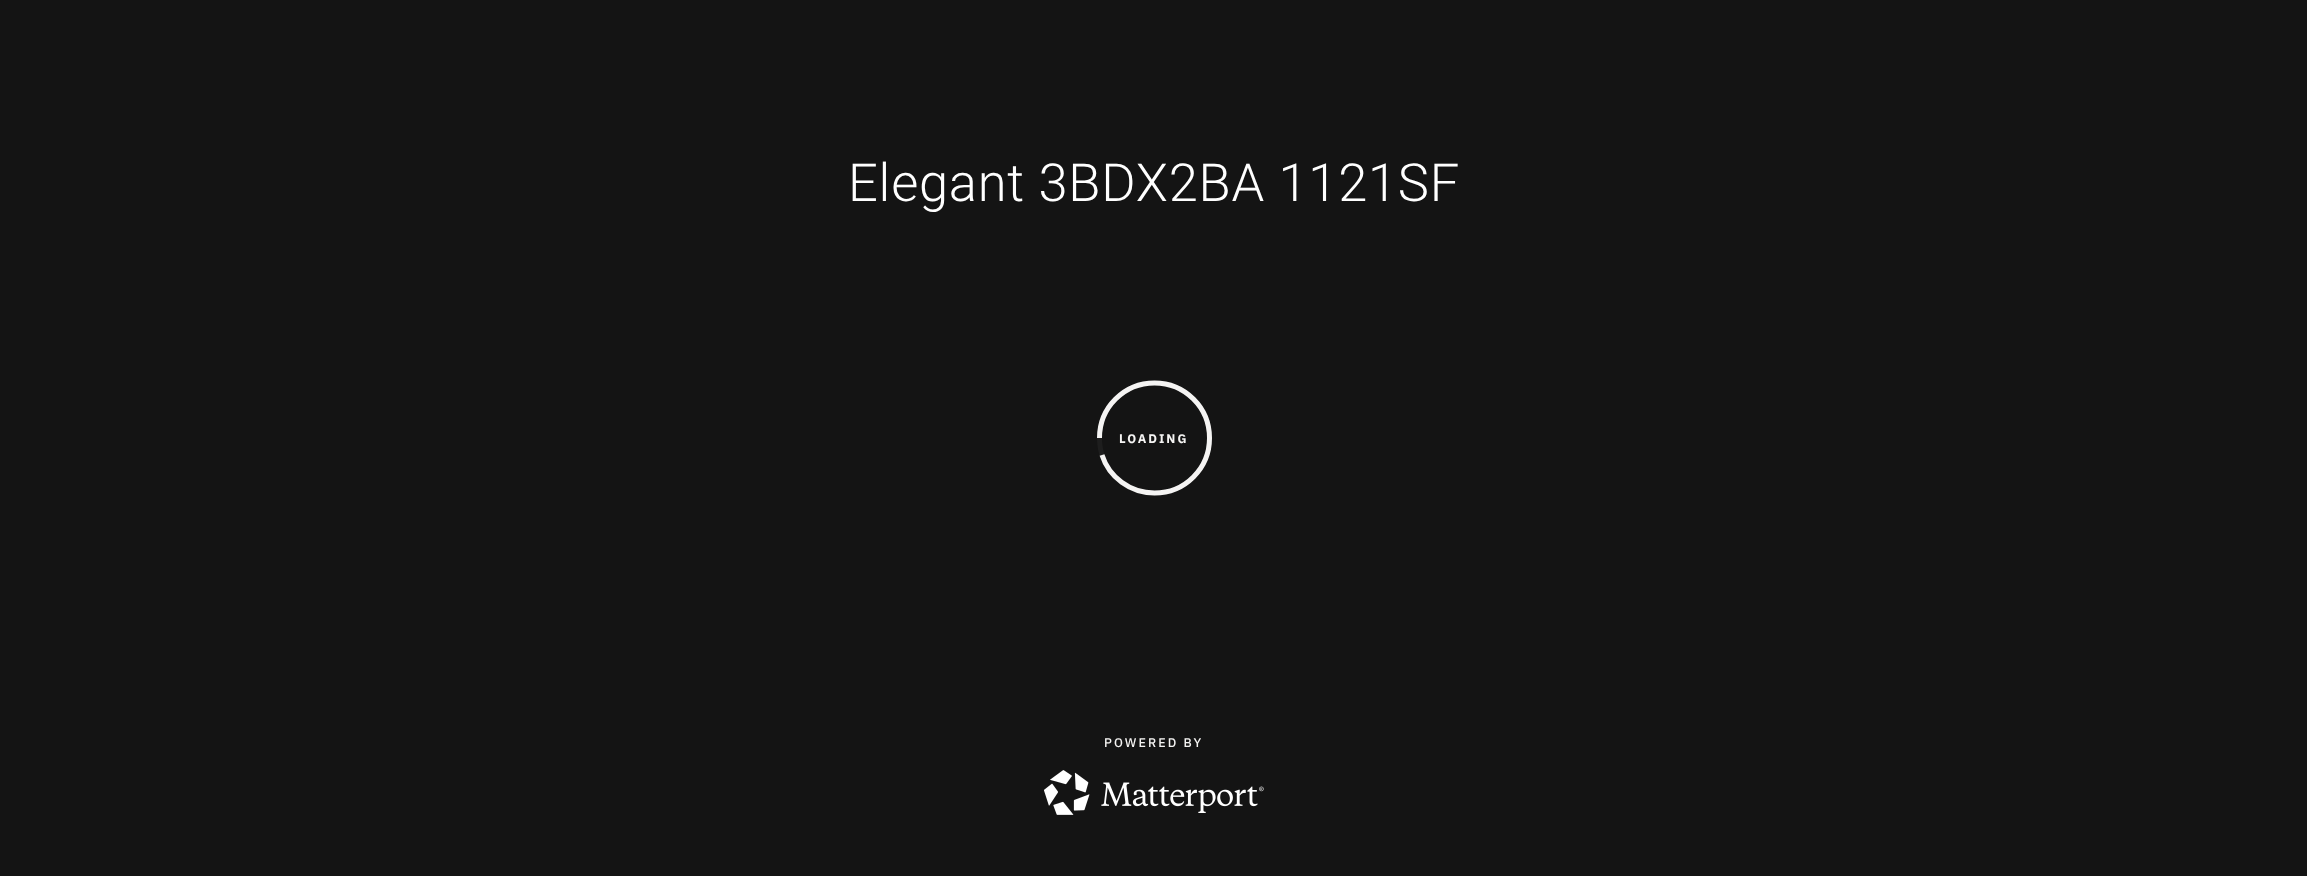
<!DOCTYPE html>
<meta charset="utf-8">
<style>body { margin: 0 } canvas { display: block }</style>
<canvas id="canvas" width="2307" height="876"></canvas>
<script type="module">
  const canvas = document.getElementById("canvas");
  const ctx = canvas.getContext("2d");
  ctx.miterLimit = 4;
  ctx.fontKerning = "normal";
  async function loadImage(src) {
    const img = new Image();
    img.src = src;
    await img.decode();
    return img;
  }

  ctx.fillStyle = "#141414";
  ctx.fillRect(0, 0, 2307, 876);
  ctx.letterSpacing = "0.75px";
  ctx.font = "300 52.5px Roboto";
  ctx.fillStyle = "#ffffff";
  ctx.fillText("Elegant 3BDX2BA 1121SF", 848, 201);
  ctx.beginPath();
  ctx.moveTo(1099.5, 438);
  ctx.bezierCurveTo(1099.5, 407.5, 1124, 383, 1154.5, 383);
  ctx.bezierCurveTo(1185, 383, 1209.5, 407.5, 1209.5, 438);
  ctx.bezierCurveTo(1209.5, 468.5, 1185, 493, 1154.5, 493);
  ctx.bezierCurveTo(1124, 493, 1099.5, 468.5, 1099.5, 438);
  ctx.closePath();
  ctx.strokeStyle = "#1e1e1e";
  ctx.lineWidth = 5;
  ctx.stroke();
  ctx.beginPath();
  ctx.moveTo(1099.5, 438);
  ctx.bezierCurveTo(1099.5, 407.5, 1124, 383, 1154.5, 383);
  ctx.bezierCurveTo(1185, 383, 1209.5, 407.5, 1209.5, 438);
  ctx.bezierCurveTo(1209.5, 468.5, 1185, 493, 1154.5, 493);
  ctx.bezierCurveTo(1130, 493, 1109, 477, 1102, 455);
  ctx.strokeStyle = "#f5f4f3";
  ctx.stroke();
  ctx.letterSpacing = "2px";
  ctx.font = "bold 12.5px IBM Plex Sans";
  ctx.fillStyle = "#f5f4f3";
  ctx.fillText("LOADING", 1119, 443);
  ctx.letterSpacing = "2.1px";
  ctx.font = "500 12.5px IBM Plex Sans";
  ctx.fillText("POWERED BY", 1104, 747);
  ctx.drawImage(await loadImage("img1.png"), 1044, 770, 220, 45);
</script>
